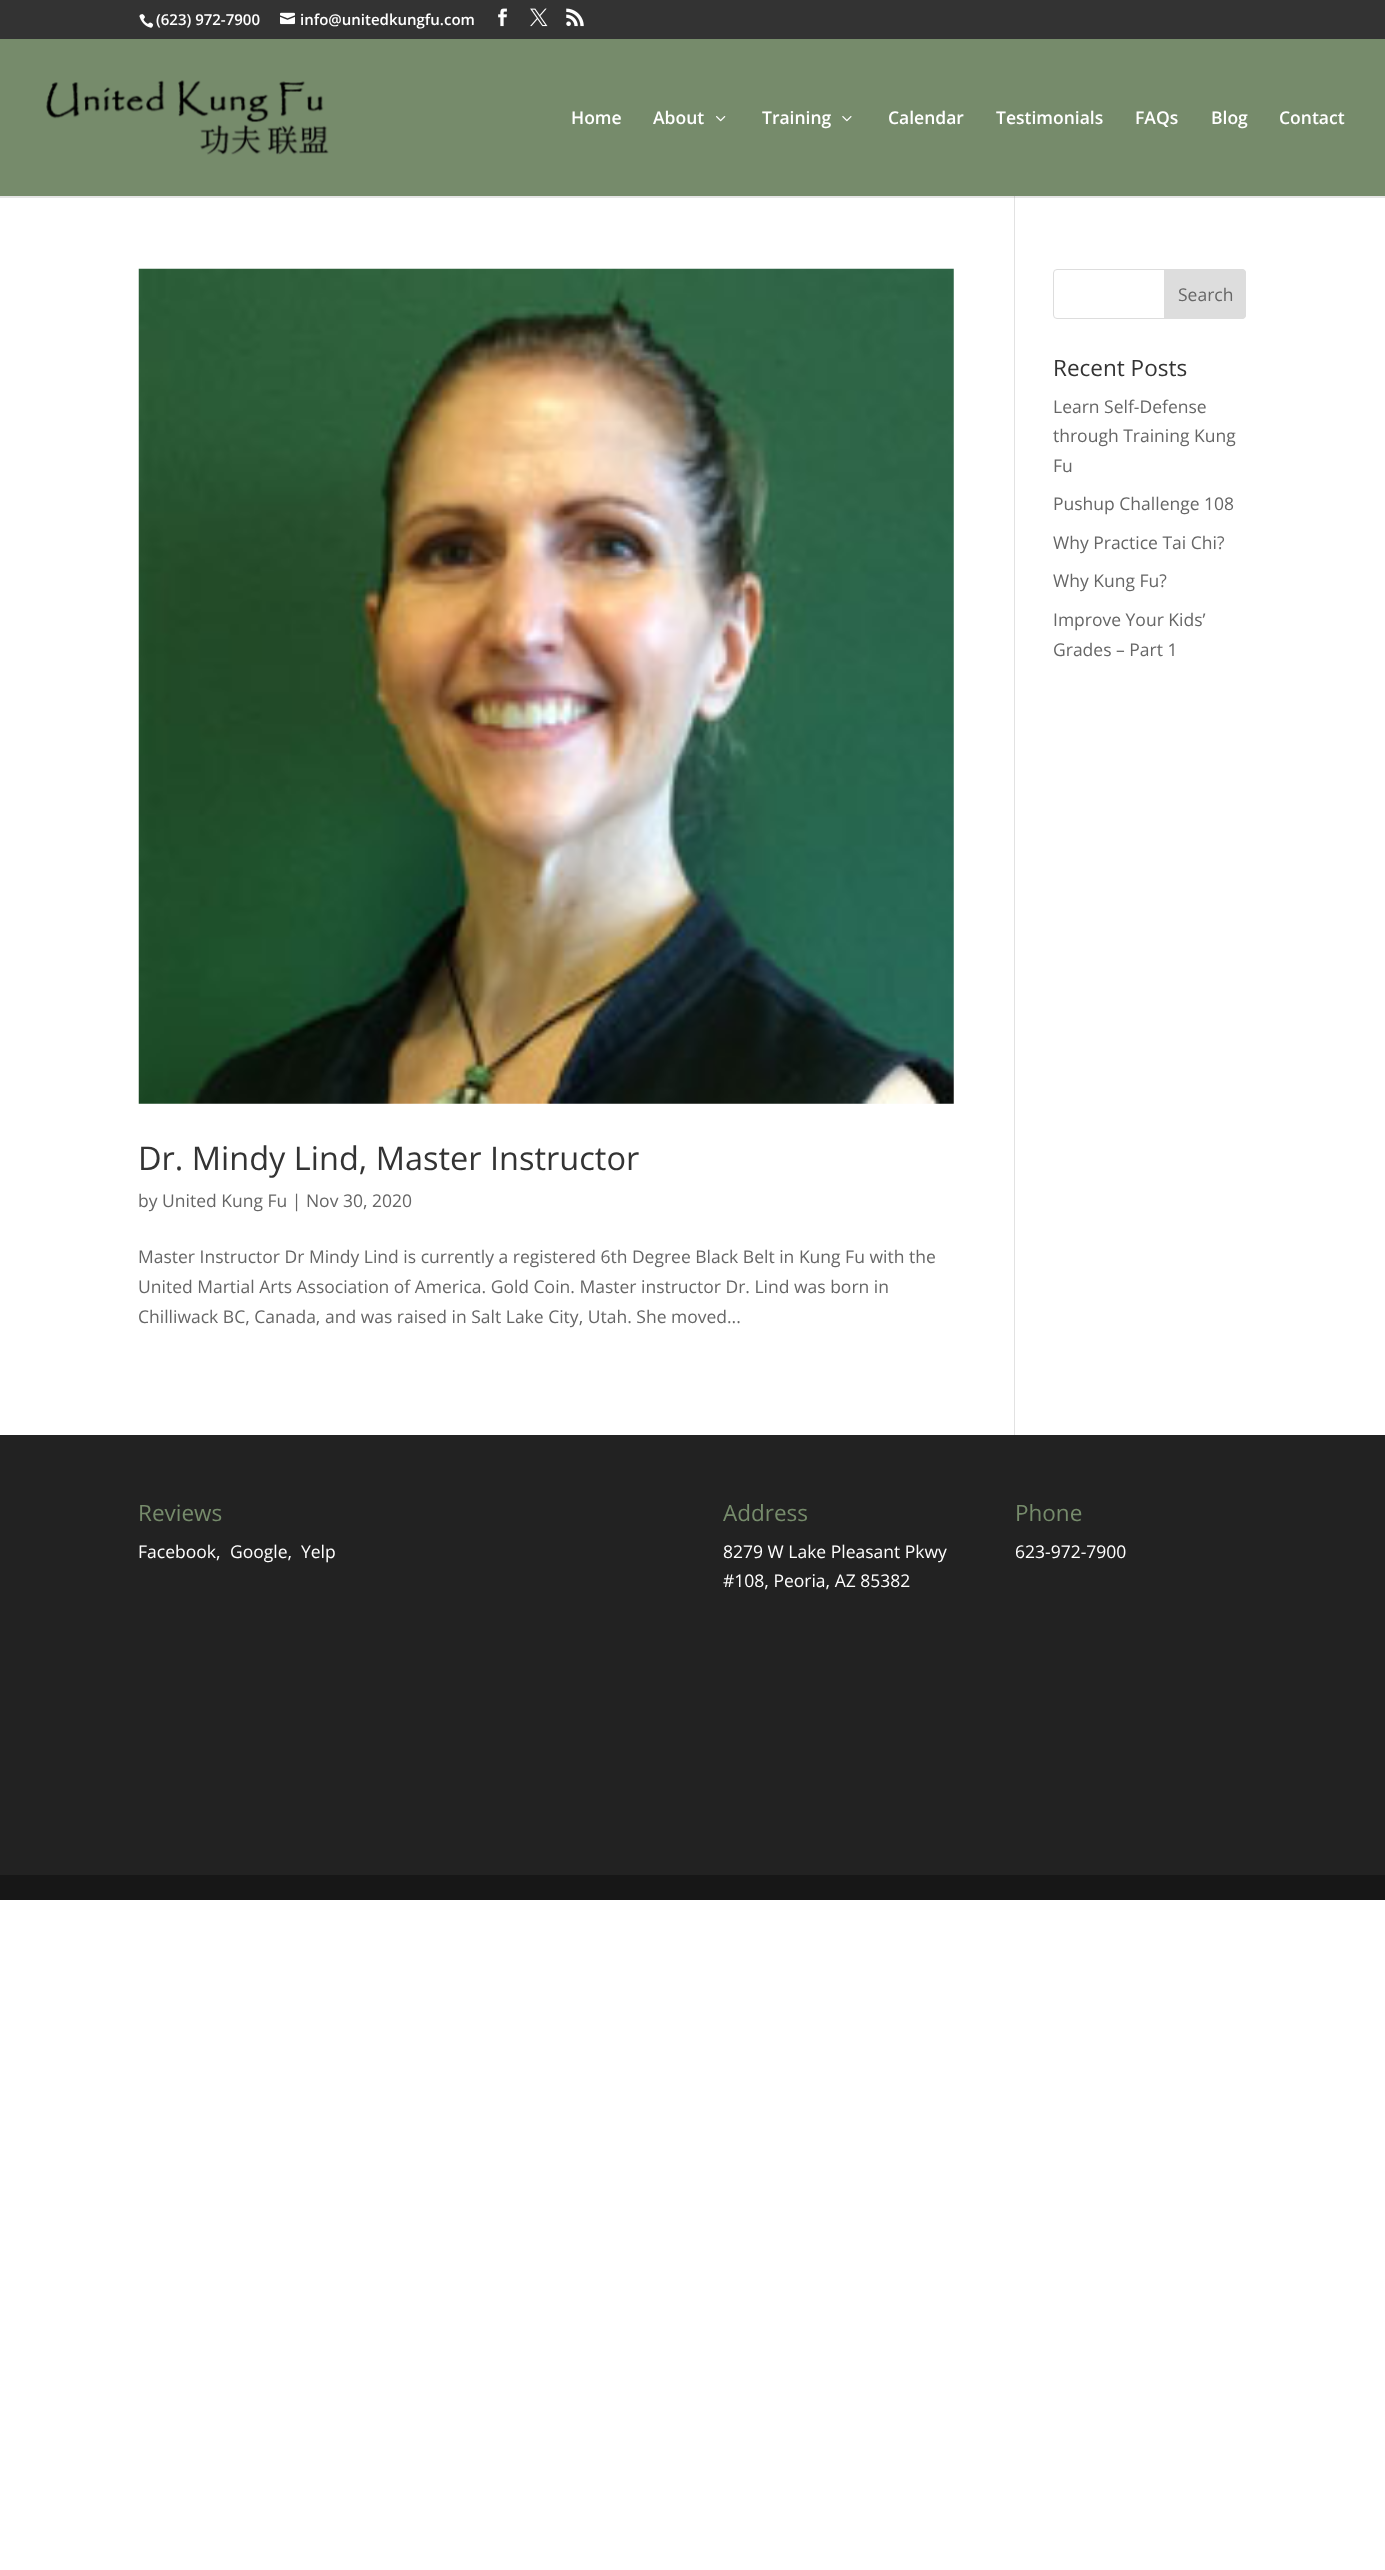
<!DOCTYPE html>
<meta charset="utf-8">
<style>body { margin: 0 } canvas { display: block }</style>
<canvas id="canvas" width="1385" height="2570"></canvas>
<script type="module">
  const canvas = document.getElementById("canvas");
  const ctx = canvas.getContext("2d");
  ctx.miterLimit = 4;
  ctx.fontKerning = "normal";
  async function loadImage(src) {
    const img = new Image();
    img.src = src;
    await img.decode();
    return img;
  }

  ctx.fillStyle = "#ffffff";
  ctx.fillRect(0, 0, 1385, 2570);
  ctx.fillStyle = "#333333";
  ctx.fillRect(0, 0, 1385, 39);
  ctx.drawImage(await loadImage("img1.png"), 139, 14, 15, 14);
  ctx.font = "600 15px Open Sans";
  ctx.fillStyle = "#ffffff";
  ctx.fillText("(623) 972-7900", 156, 25);
  ctx.drawImage(await loadImage("img2.png"), 280, 12, 15, 13);
  ctx.fillText("info@unitedkungfu.com", 300, 25);
  ctx.drawImage(await loadImage("img3.png"), 498, 8, 9, 19);
  ctx.drawImage(await loadImage("img4.png"), 530, 8, 18, 19);
  ctx.drawImage(await loadImage("img5.png"), 566, 8, 18, 19);
  ctx.fillStyle = "#e2e2e2";
  ctx.fillRect(1014, 196, 1, 1239);
  ctx.fillStyle = "rgba(0, 0, 0, 0.1)";
  ctx.fillRect(0, 196, 1385, 2);
  ctx.fillStyle = "#768b6b";
  ctx.fillRect(0, 39, 1385, 157);
  ctx.drawImage(await loadImage("img6.png"), 46, 80, 283, 75);
  ctx.font = "600 17.5px Open Sans";
  ctx.fillStyle = "#ffffff";
  ctx.fillText("Home", 571, 124);
  ctx.fillText("About", 653, 124);
  ctx.drawImage(await loadImage("img7.png"), 716, 116, 10, 6);
  ctx.fillText("Training", 762, 124);
  ctx.drawImage(await loadImage("img8.png"), 842, 116, 10, 6);
  ctx.fillText("Calendar", 888, 124);
  ctx.fillText("Testimonials", 996, 124);
  ctx.fillText("FAQs", 1135, 124);
  ctx.fillText("Blog", 1211, 124);
  ctx.fillText("Contact", 1279, 124);
  ctx.beginPath();
  ctx.roundRect(1053.5, 269.5, 192, 49, 3.5);
  ctx.strokeStyle = "#dddddd";
  ctx.stroke();
  ctx.fillStyle = "#dddddd";
  ctx.beginPath();
  ctx.roundRect(1164.5, 269.5, 81, 49, [0, 3.5, 3.5, 0]);
  ctx.fill();
  ctx.stroke();
  ctx.font = "17.5px Open Sans";
  ctx.fillStyle = "#666666";
  ctx.fillText("Search", 1178, 301);
  ctx.font = "22.5px Open Sans";
  ctx.fillStyle = "#333333";
  ctx.fillText("Recent Posts", 1053, 376);
  ctx.font = "17.5px Open Sans";
  ctx.fillStyle = "#666666";
  ctx.fillText("Learn Self-Defense", 1053, 413);
  ctx.fillText("through Training Kung", 1053, 442);
  ctx.fillText("Fu", 1053, 472);
  ctx.fillText("Pushup Challenge 108", 1053, 510);
  ctx.fillText("Why Practice Tai Chi?", 1053, 549);
  ctx.fillText("Why Kung Fu?", 1053, 587);
  ctx.fillText("Improve Your Kids’", 1053, 626);
  ctx.fillText("Grades – Part 1", 1053, 656);
  ctx.drawImage(await loadImage("img9.png"), 138, 268, 816, 836);
  ctx.font = "32.5px Open Sans";
  ctx.fillStyle = "#333333";
  ctx.fillText("Dr. Mindy Lind, Master Instructor", 138, 1170);
  ctx.font = "17.5px Open Sans";
  ctx.fillStyle = "#666666";
  ctx.fillText("by United Kung Fu | Nov 30, 2020", 138, 1207);
  ctx.fillText("Master Instructor Dr Mindy Lind is currently a registered 6th Degree Black Belt in Kung Fu with the", 138, 1263);
  ctx.fillText("United Martial Arts Association of America. Gold Coin. Master instructor Dr. Lind was born in", 138, 1293);
  ctx.fillText("Chilliwack BC, Canada, and was raised in Salt Lake City, Utah. She moved...", 138, 1323);
  ctx.fillStyle = "#222222";
  ctx.fillRect(0, 1435, 1385, 440);
  ctx.font = "22.5px Open Sans";
  ctx.fillStyle = "#768b6b";
  ctx.fillText("Reviews", 138, 1521);
  ctx.font = "17.5px Open Sans";
  ctx.fillStyle = "#ffffff";
  ctx.fillText("Facebook,", 138, 1558);
  ctx.fillText("Google,", 230, 1558);
  ctx.fillText("Yelp", 301, 1558);
  ctx.font = "22.5px Open Sans";
  ctx.fillStyle = "#768b6b";
  ctx.fillText("Address", 723, 1521);
  ctx.font = "17.5px Open Sans";
  ctx.fillStyle = "#ffffff";
  ctx.fillText("8279 W Lake Pleasant Pkwy", 723, 1558);
  ctx.fillText("#108, Peoria, AZ 85382", 723, 1587);
  ctx.font = "22.5px Open Sans";
  ctx.fillStyle = "#768b6b";
  ctx.fillText("Phone", 1015, 1521);
  ctx.font = "17.5px Open Sans";
  ctx.fillStyle = "#ffffff";
  ctx.fillText("623-972-7900", 1015, 1558);
  ctx.fillStyle = "#171717";
  ctx.fillRect(0, 1875, 1385, 25);
</script>
